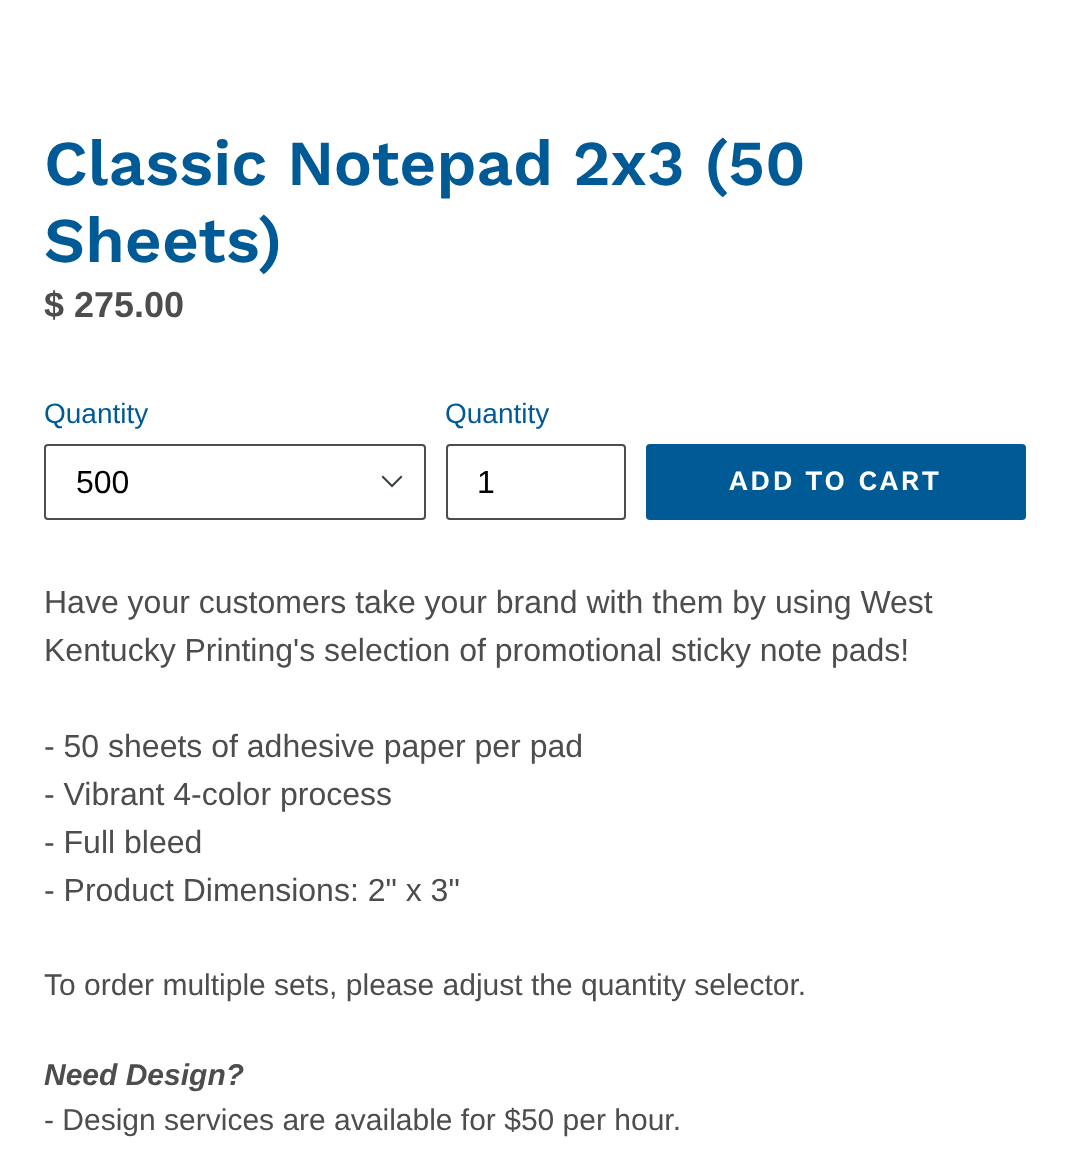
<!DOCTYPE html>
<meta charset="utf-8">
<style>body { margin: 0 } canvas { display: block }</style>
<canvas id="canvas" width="1069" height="1162"></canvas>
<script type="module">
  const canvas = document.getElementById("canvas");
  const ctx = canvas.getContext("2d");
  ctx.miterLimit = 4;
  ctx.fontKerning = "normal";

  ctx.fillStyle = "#ffffff";
  ctx.fillRect(0, 0, 1069, 1162);
  ctx.font = "600 64px Work Sans";
  ctx.fillStyle = "#005a96";
  ctx.fillText("Classic Notepad 2x3 (50", 44, 185);
  ctx.fillText("Sheets)", 44, 262);
  ctx.font = "bold 36px Liberation Sans";
  ctx.fillStyle = "#4d4d4d";
  ctx.fillText("$ 275.00", 44, 317);
  ctx.font = "28px Liberation Sans";
  ctx.fillStyle = "#005a96";
  ctx.fillText("Quantity", 44, 423);
  ctx.fillStyle = "#3d4246";
  ctx.beginPath();
  ctx.moveTo(392, 487.5);
  ctx.lineTo(381.5, 477);
  ctx.lineTo(383, 475.5);
  ctx.lineTo(392, 484.5);
  ctx.lineTo(401, 475.5);
  ctx.lineTo(402.5, 477);
  ctx.closePath();
  ctx.fill();
  ctx.beginPath();
  ctx.roundRect(45, 445, 380, 74, 3);
  ctx.strokeStyle = "#4d4d4d";
  ctx.lineWidth = 2;
  ctx.stroke();
  ctx.font = "32px Liberation Sans";
  ctx.fillStyle = "#000000";
  ctx.fillText("500", 76, 493);
  ctx.font = "28px Liberation Sans";
  ctx.fillStyle = "#005a96";
  ctx.fillText("Quantity", 445, 423);
  ctx.beginPath();
  ctx.roundRect(447, 445, 178, 74, 3);
  ctx.stroke();
  ctx.font = "32px Liberation Sans";
  ctx.fillStyle = "#000000";
  ctx.fillText("1", 477, 493);
  ctx.fillStyle = "#005a96";
  ctx.beginPath();
  ctx.roundRect(646, 444, 380, 76, 4);
  ctx.fill();
  ctx.letterSpacing = "2.25px";
  ctx.font = "600 28px Work Sans";
  ctx.fillStyle = "#ffffff";
  ctx.fillText("ADD TO CART", 729, 490);
  ctx.letterSpacing = "0px";
  ctx.font = "32px Liberation Sans";
  ctx.fillStyle = "#4d4d4d";
  ctx.fillText("Have your customers take your brand with them by using West", 44, 613);
  ctx.fillText("Kentucky Printing's selection of promotional sticky note pads!", 44, 661);
  ctx.fillText("- 50 sheets of adhesive paper per pad", 44, 757);
  ctx.fillText("- Vibrant 4-color process", 44, 805);
  ctx.fillText("- Full bleed", 44, 853);
  ctx.fillText("- Product Dimensions: 2\" x 3\"", 44, 901);
  ctx.font = "30px Liberation Sans";
  ctx.fillText("To order multiple sets, please adjust the quantity selector.", 44, 995);
  ctx.font = "italic bold 30px Liberation Sans";
  ctx.fillText("Need Design?", 44, 1085);
  ctx.font = "30px Liberation Sans";
  ctx.fillText("- Design services are available for $50 per hour.", 44, 1130);
</script>
